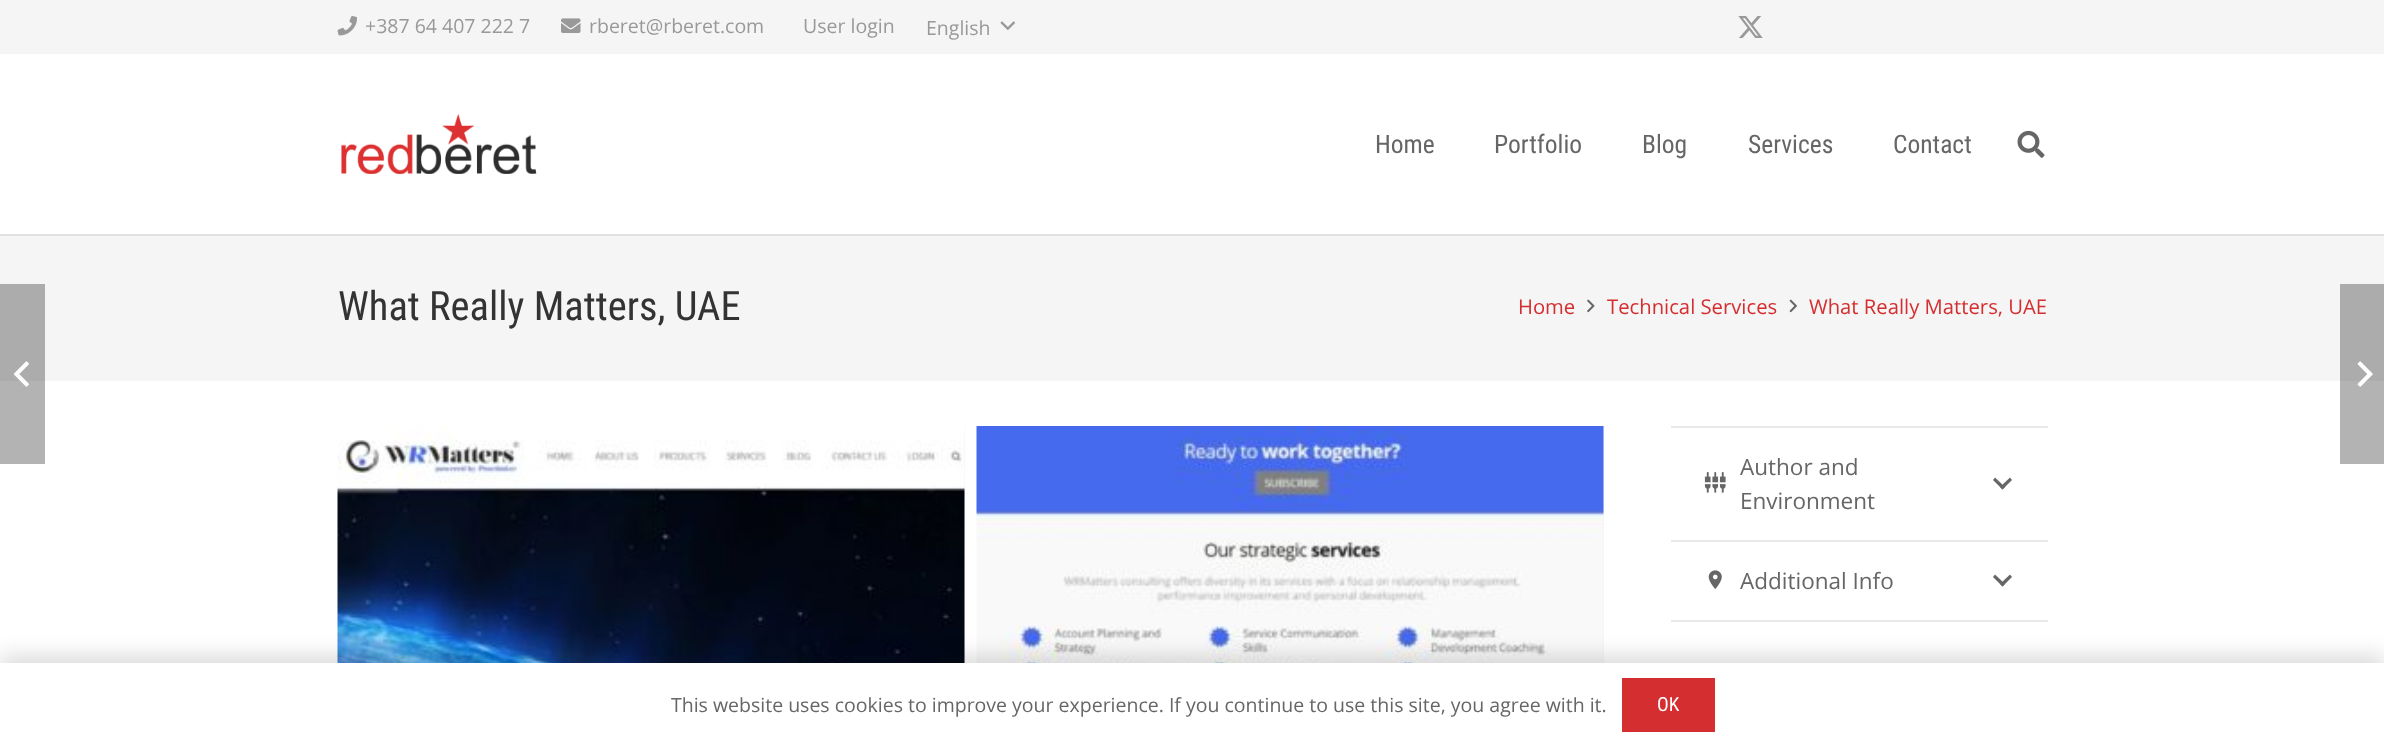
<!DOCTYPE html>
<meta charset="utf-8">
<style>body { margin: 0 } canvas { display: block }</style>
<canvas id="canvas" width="2384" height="746"></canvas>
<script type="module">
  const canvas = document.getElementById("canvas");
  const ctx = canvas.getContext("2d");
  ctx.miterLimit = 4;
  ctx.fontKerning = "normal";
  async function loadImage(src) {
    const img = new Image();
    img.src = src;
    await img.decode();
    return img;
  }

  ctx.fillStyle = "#ffffff";
  ctx.fillRect(0, 0, 2384, 746);
  ctx.fillStyle = "#b3b3b3";
  ctx.fillRect(2340, 381, 44, 83);
  ctx.fillRect(0, 381, 45, 83);
  ctx.fillStyle = "#f5f5f5";
  ctx.fillRect(0, 0, 2384, 381);
  ctx.drawImage(await loadImage("img1.png"), 337, 16, 20, 20);
  ctx.font = "19.5px Open Sans";
  ctx.fillStyle = "#999999";
  ctx.fillText("+387 64 407 222 7", 365, 33);
  ctx.drawImage(await loadImage("img2.png"), 561, 18, 20, 15);
  ctx.fillText("rberet@rberet.com", 589, 33);
  ctx.fillText("User login", 803, 33);
  ctx.fillText("English", 926, 35);
  ctx.drawImage(await loadImage("img3.png"), 1000, 21, 15, 9);
  ctx.drawImage(await loadImage("img4.png"), 1738, 16, 25, 22);
  ctx.fillStyle = "#e1e1e1";
  ctx.fillRect(0, 234, 2384, 2);
  ctx.fillStyle = "#ffffff";
  ctx.fillRect(0, 54, 2384, 180);
  ctx.drawImage(await loadImage("img5.png"), 341, 114, 196, 60);
  ctx.font = "25.5px Roboto Condensed";
  ctx.fillStyle = "#666666";
  ctx.fillText("Home", 1375, 153);
  ctx.fillText("Portfolio", 1494, 153);
  ctx.fillText("Blog", 1642, 153);
  ctx.fillText("Services", 1748, 153);
  ctx.fillText("Contact", 1893, 153);
  ctx.drawImage(await loadImage("img6.png"), 2017, 130, 28, 28);
  ctx.fillStyle = "#acacac";
  ctx.fillRect(2340, 284, 44, 97);
  ctx.fillRect(0, 284, 45, 97);
  ctx.font = "40.5px Roboto Condensed";
  ctx.fillStyle = "#333333";
  ctx.fillText("What Really Matters, UAE", 338, 320);
  ctx.font = "20.25px Open Sans";
  ctx.fillStyle = "#d52e30";
  ctx.fillText("Home", 1518, 314);
  ctx.drawImage(await loadImage("img7.png"), 1587, 299, 8, 14);
  ctx.fillText("Technical Services", 1607, 314);
  ctx.drawImage(await loadImage("img8.png"), 1789, 299, 8, 14);
  ctx.fillText("What Really Matters, UAE", 1809, 314);
  ctx.drawImage(await loadImage("img9.png"), 13, 361, 16, 26);
  ctx.drawImage(await loadImage("img10.png"), 2357, 361, 16, 26);
  ctx.fillStyle = "#f3f3f3";
  ctx.fillRect(964, 426, 1, 237);
  ctx.drawImage(await loadImage("img11.png"), 337, 426, 628, 237);
  ctx.fillRect(1603, 426, 1, 237);
  ctx.drawImage(await loadImage("img12.png"), 976, 426, 628, 237);
  ctx.fillStyle = "#e8e8e8";
  ctx.fillRect(1671, 426, 377, 2);
  ctx.drawImage(await loadImage("img13.png"), 1704, 471, 22, 22);
  ctx.font = "22.5px Open Sans";
  ctx.fillStyle = "#666666";
  ctx.fillText("Author and", 1740, 475);
  ctx.fillText("Environment", 1740, 509);
  ctx.beginPath();
  ctx.moveTo(1993, 480);
  ctx.lineTo(1995, 477.5);
  ctx.lineTo(2005, 487);
  ctx.lineTo(2002.5, 489.5);
  ctx.closePath();
  ctx.fill();
  ctx.beginPath();
  ctx.moveTo(2010, 477.5);
  ctx.lineTo(2012, 480);
  ctx.lineTo(2002.5, 489.5);
  ctx.lineTo(2000, 487);
  ctx.closePath();
  ctx.fill();
  ctx.fillStyle = "#e8e8e8";
  ctx.fillRect(1671, 540, 377, 2);
  ctx.fillRect(1671, 620, 377, 2);
  ctx.drawImage(await loadImage("img14.png"), 1708, 570, 14, 19);
  ctx.fillStyle = "#666666";
  ctx.fillText("Additional Info", 1740, 589);
  ctx.beginPath();
  ctx.moveTo(1993, 577);
  ctx.lineTo(1995, 574.5);
  ctx.lineTo(2005, 584);
  ctx.lineTo(2002.5, 586.5);
  ctx.closePath();
  ctx.fill();
  ctx.beginPath();
  ctx.moveTo(2010, 574.5);
  ctx.lineTo(2012, 577);
  ctx.lineTo(2002.5, 586.5);
  ctx.lineTo(2000, 584);
  ctx.closePath();
  ctx.fill();
  ctx.fillStyle = "rgba(0, 0, 0, 0.15)";
  ctx.filter = "blur(11px)";
  ctx.beginPath();
  ctx.rect(0, 656, 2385, 84);
  ctx.fill();
  ctx.filter = "none";
  ctx.fillStyle = "#ffffff";
  ctx.fillRect(0, 663, 2384, 83);
  ctx.font = "19.5px Open Sans";
  ctx.fillStyle = "#666666";
  ctx.fillText("This website uses cookies to improve your experience. If you continue to use this site, you agree with it.", 671, 712);
  ctx.fillStyle = "#d52e30";
  ctx.fillRect(1622, 678, 93, 54);
  ctx.font = "19.5px Roboto Condensed";
  ctx.fillStyle = "#ffffff";
  ctx.fillText("OK", 1657, 711);
</script>
